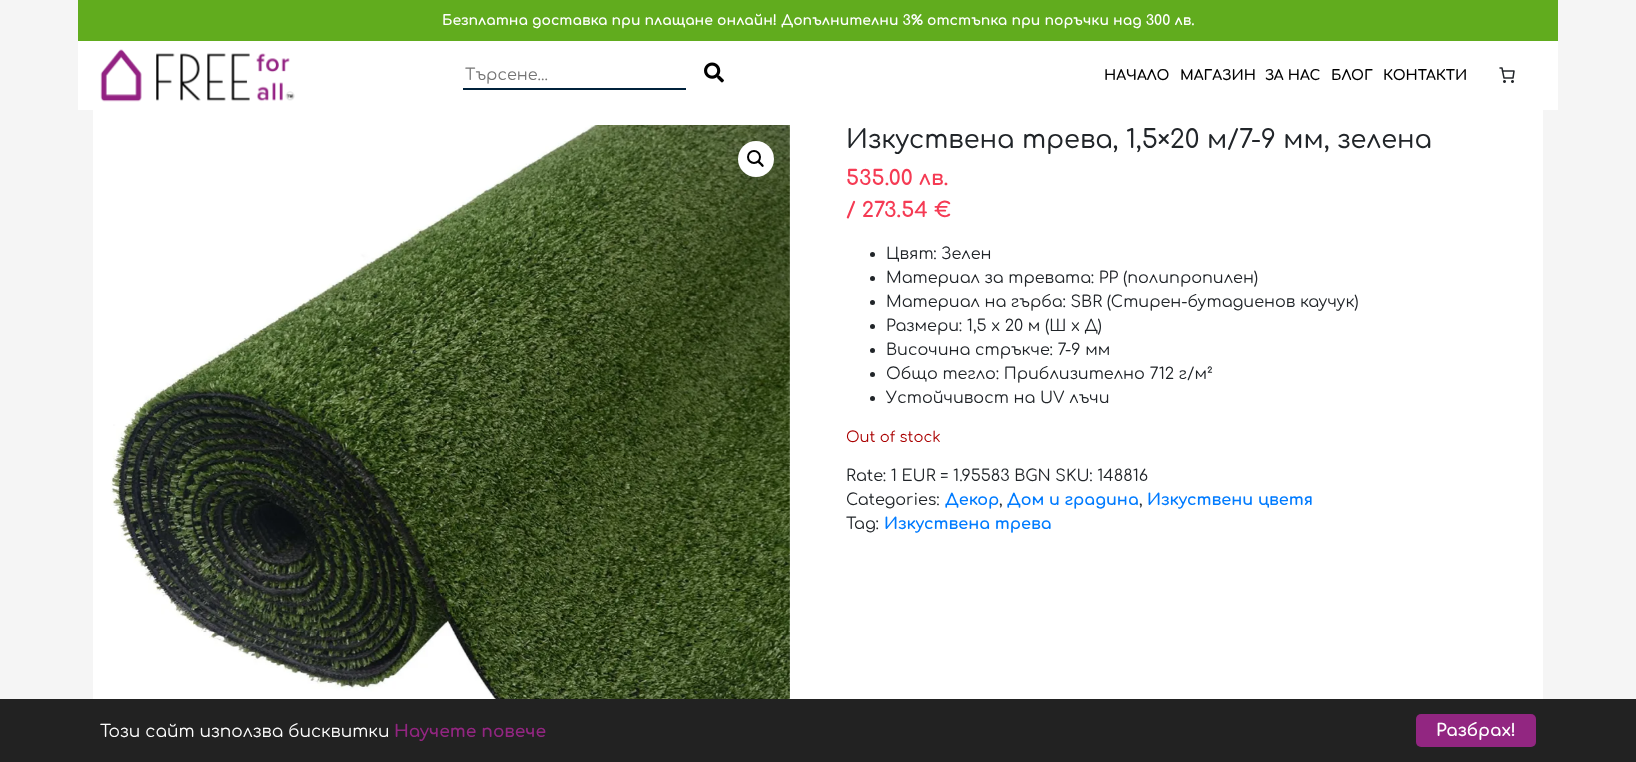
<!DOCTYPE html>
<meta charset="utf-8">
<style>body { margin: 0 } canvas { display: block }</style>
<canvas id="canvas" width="1636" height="762"></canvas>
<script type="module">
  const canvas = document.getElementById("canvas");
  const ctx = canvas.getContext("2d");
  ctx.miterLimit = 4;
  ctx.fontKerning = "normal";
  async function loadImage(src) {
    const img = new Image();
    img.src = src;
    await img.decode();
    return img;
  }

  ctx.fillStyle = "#f5f5f5";
  ctx.fillRect(0, 0, 1636, 762);
  ctx.fillStyle = "#ffffff";
  ctx.fillRect(78, 41, 1480, 69);
  ctx.fillStyle = "#61ac1e";
  ctx.fillRect(78, 0, 1480, 41);
  ctx.font = "bold 14px Comfortaa";
  ctx.fillStyle = "#ffffff";
  ctx.fillText("Безплатна доставка при плащане онлайн! Допълнителни 3% отстъпка при поръчки над 300 лв.", 442, 25);
  ctx.drawImage(await loadImage("img1.png"), 100, 49, 195, 53);
  ctx.fillStyle = "#00213b";
  ctx.fillRect(463, 88, 223, 2);
  ctx.font = "16px Comfortaa";
  ctx.fillStyle = "#757575";
  ctx.fillText("Търсене...", 465, 80);
  ctx.drawImage(await loadImage("img2.png"), 704, 62, 20, 21);
  ctx.font = "bold 14px Comfortaa";
  ctx.fillStyle = "#000000";
  ctx.fillText("НАЧАЛО", 1104, 80);
  ctx.fillText("МАГАЗИН", 1180, 80);
  ctx.fillText("ЗА НАС", 1265, 80);
  ctx.fillText("БЛОГ", 1331, 80);
  ctx.fillText("КОНТАКТИ", 1383, 80);
  ctx.drawImage(await loadImage("img3.png"), 1499, 67, 16, 16);
  ctx.fillStyle = "#ffffff";
  ctx.fillRect(93, 110, 1450, 589);
  ctx.drawImage(await loadImage("img4.png"), 110, 125, 680, 574);
  ctx.beginPath();
  ctx.arc(756, 159, 18, 0, Math.PI * 2);
  ctx.fill();
  ctx.beginPath();
  ctx.arc(754, 157, 6, 0, Math.PI * 2);
  ctx.strokeStyle = "#000000";
  ctx.lineWidth = 2;
  ctx.stroke();
  ctx.fillStyle = "#000000";
  ctx.beginPath();
  ctx.moveTo(758, 161);
  ctx.bezierCurveTo(759, 159.5, 760.5, 162.5, 761.5, 163);
  ctx.bezierCurveTo(762, 163.5, 764.5, 165.5, 763.5, 166.5);
  ctx.bezierCurveTo(762, 168, 760.5, 165, 760, 164.5);
  ctx.bezierCurveTo(759.5, 164, 756.5, 162, 758, 161);
  ctx.closePath();
  ctx.fill();
  ctx.font = "500 25.6px Comfortaa";
  ctx.fillStyle = "#212529";
  ctx.fillText("Изкуствена трева, 1,5×20 м/7-9 мм, зелена", 846, 148);
  ctx.font = "bold 20.75px Comfortaa";
  ctx.fillStyle = "#f53b54";
  ctx.fillText("535.00 лв.", 846, 185);
  ctx.fillText("/ 273.54 €", 846, 217);
  ctx.fillStyle = "#212529";
  ctx.beginPath();
  ctx.arc(872.5, 254.5, 2.5, 0, Math.PI * 2);
  ctx.fill();
  ctx.font = "16px Comfortaa";
  ctx.fillText("Цвят: Зелен", 886, 259);
  ctx.beginPath();
  ctx.arc(872.5, 278.5, 2.5, 0, Math.PI * 2);
  ctx.fill();
  ctx.fillText("Материал за тревата: PP (полипропилен)", 886, 283);
  ctx.beginPath();
  ctx.arc(872.5, 302.5, 2.5, 0, Math.PI * 2);
  ctx.fill();
  ctx.fillText("Материал на гърба: SBR (Стирен-бутадиенов каучук)", 886, 307);
  ctx.beginPath();
  ctx.arc(872.5, 326.5, 2.5, 0, Math.PI * 2);
  ctx.fill();
  ctx.fillText("Размери: 1,5 х 20 м (Ш х Д)", 886, 331);
  ctx.beginPath();
  ctx.arc(872.5, 350.5, 2.5, 0, Math.PI * 2);
  ctx.fill();
  ctx.fillText("Височина стръкче: 7-9 мм", 886, 355);
  ctx.beginPath();
  ctx.arc(872.5, 374.5, 2.5, 0, Math.PI * 2);
  ctx.fill();
  ctx.fillText("Общо тегло: Приблизително 712 г/м²", 886, 379);
  ctx.beginPath();
  ctx.arc(872.5, 398.5, 2.5, 0, Math.PI * 2);
  ctx.fill();
  ctx.fillText("Устойчивост на UV лъчи", 886, 403);
  ctx.font = "14.75px Comfortaa";
  ctx.fillStyle = "#aa0000";
  ctx.fillText("Out of stock", 846, 442);
  ctx.font = "16px Comfortaa";
  ctx.fillStyle = "#212529";
  ctx.fillText("Rate: 1 EUR = 1.95583 BGN SKU: 148816", 846, 481);
  ctx.fillText("Categories:", 846, 505);
  ctx.font = "bold 16px Comfortaa";
  ctx.fillStyle = "#007bff";
  ctx.fillText("Декор", 945, 505);
  ctx.font = "16px Comfortaa";
  ctx.fillStyle = "#212529";
  ctx.fillText(",", 999, 505);
  ctx.font = "bold 16px Comfortaa";
  ctx.fillStyle = "#007bff";
  ctx.fillText("Дом и градина", 1007, 505);
  ctx.font = "16px Comfortaa";
  ctx.fillStyle = "#212529";
  ctx.fillText(",", 1139, 505);
  ctx.font = "bold 16px Comfortaa";
  ctx.fillStyle = "#007bff";
  ctx.fillText("Изкуствени цветя", 1147, 505);
  ctx.font = "16px Comfortaa";
  ctx.fillStyle = "#212529";
  ctx.fillText("Tag:", 846, 529);
  ctx.font = "bold 16px Comfortaa";
  ctx.fillStyle = "#007bff";
  ctx.fillText("Изкуствена трева", 884, 529);
  ctx.fillStyle = "#222222";
  ctx.fillRect(0, 699, 1636, 63);
  ctx.font = "17px Comfortaa";
  ctx.fillStyle = "#ffffff";
  ctx.fillText("Този сайт използва бисквитки", 100, 737);
  ctx.font = "bold 17px Comfortaa";
  ctx.fillStyle = "#922681";
  ctx.fillText("Научете повече", 394, 737);
  ctx.beginPath();
  ctx.roundRect(1416, 714, 120, 33, 5);
  ctx.fill();
  ctx.fillStyle = "#ffffff";
  ctx.fillText("Разбрах!", 1436, 736);
</script>
